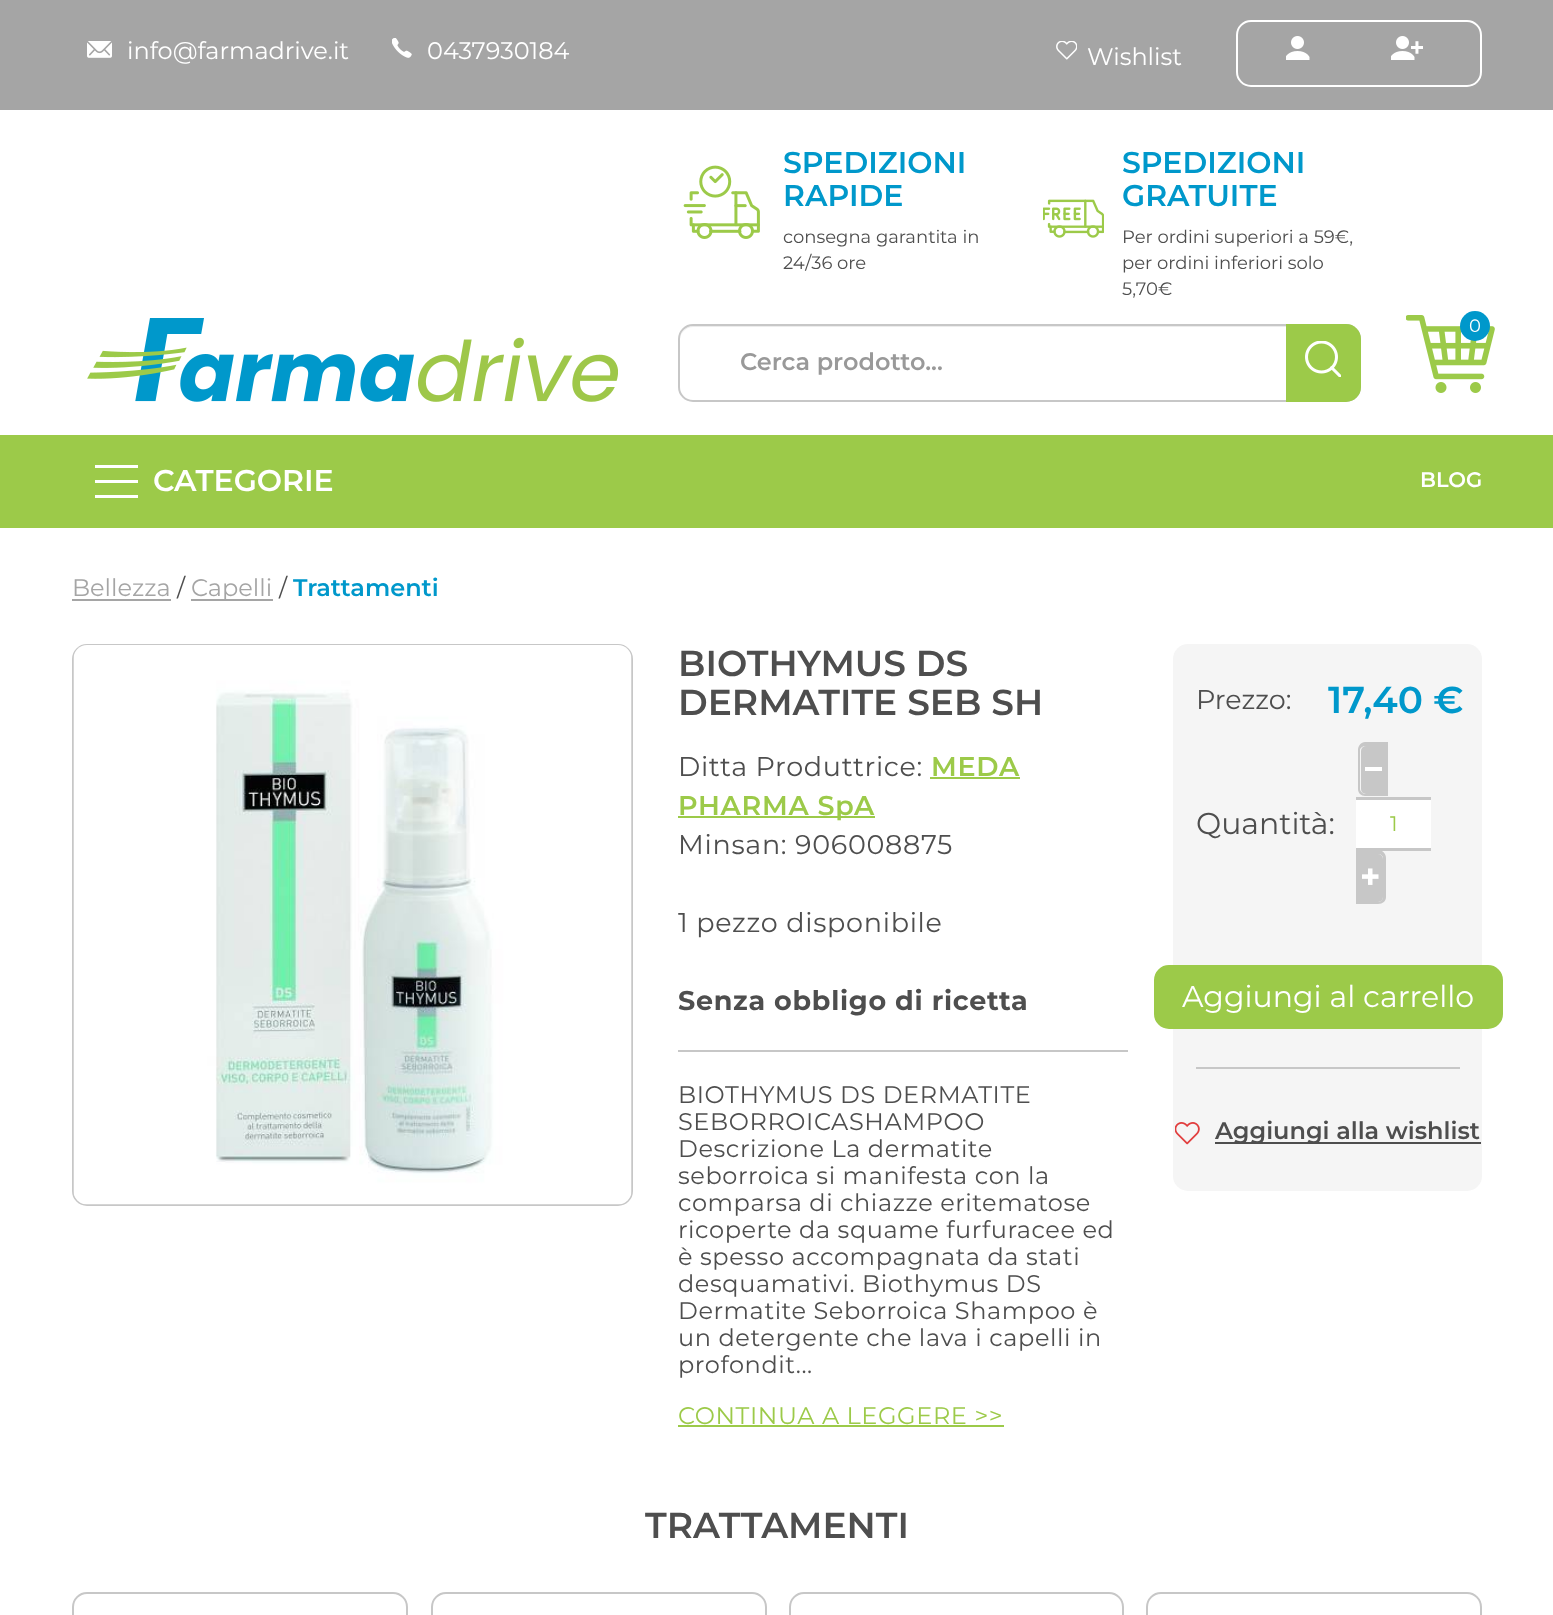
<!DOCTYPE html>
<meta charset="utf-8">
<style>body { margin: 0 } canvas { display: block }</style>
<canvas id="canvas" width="1553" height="1615"></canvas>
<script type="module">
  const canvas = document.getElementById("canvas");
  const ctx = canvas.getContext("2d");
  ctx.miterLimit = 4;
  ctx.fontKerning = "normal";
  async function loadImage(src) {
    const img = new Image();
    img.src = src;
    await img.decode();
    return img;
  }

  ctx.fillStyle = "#ffffff";
  ctx.fillRect(0, 0, 1553, 1615);
  ctx.fillStyle = "#a5a5a5";
  ctx.fillRect(0, 0, 1553, 110);
  ctx.drawImage(await loadImage("img1.png"), 87, 41, 25, 17);
  ctx.font = "24px Montserrat";
  ctx.fillStyle = "#ffffff";
  ctx.fillText("info@farmadrive.it", 127, 59);
  ctx.drawImage(await loadImage("img2.png"), 392, 38, 20, 20);
  ctx.fillText("0437930184", 427, 59);
  ctx.drawImage(await loadImage("img3.png"), 1056, 41, 21, 19);
  ctx.fillText("Wishlist", 1087, 65);
  ctx.beginPath();
  ctx.roundRect(1237, 21, 244, 65, 14);
  ctx.strokeStyle = "#ffffff";
  ctx.lineWidth = 2;
  ctx.stroke();
  ctx.drawImage(await loadImage("img4.png"), 1286, 36, 24, 24);
  ctx.drawImage(await loadImage("img5.png"), 1391, 36, 32, 24);
  ctx.drawImage(await loadImage("img6.png"), 87, 318, 531, 84);
  ctx.drawImage(await loadImage("img7.png"), 683, 165, 77, 74);
  ctx.font = "600 30px Montserrat";
  ctx.fillStyle = "#0098cb";
  ctx.fillText("SPEDIZIONI", 783, 173);
  ctx.fillText("RAPIDE", 783, 206);
  ctx.font = "18px Montserrat";
  ctx.fillStyle = "#4e4e4e";
  ctx.fillText("consegna garantita in", 783, 243);
  ctx.fillText("24/36 ore", 783, 269);
  ctx.drawImage(await loadImage("img8.png"), 1043, 199, 61, 39);
  ctx.font = "600 30px Montserrat";
  ctx.fillStyle = "#0098cb";
  ctx.fillText("SPEDIZIONI", 1122, 173);
  ctx.fillText("GRATUITE", 1122, 206);
  ctx.font = "18px Montserrat";
  ctx.fillStyle = "#4e4e4e";
  ctx.fillText("Per ordini superiori a 59€,", 1122, 243);
  ctx.fillText("per ordini inferiori solo", 1122, 269);
  ctx.fillText("5,70€", 1122, 295);
  ctx.fillStyle = "#ececec";
  ctx.beginPath();
  ctx.moveTo(693, 327);
  ctx.lineTo(1346, 327);
  ctx.bezierCurveTo(1353, 327, 1359, 333, 1359, 340);
  ctx.bezierCurveTo(1359, 332, 1353, 326, 1345, 326);
  ctx.lineTo(694, 326);
  ctx.bezierCurveTo(686, 326, 680, 332, 680, 340);
  ctx.bezierCurveTo(680, 333, 686, 327, 693, 327);
  ctx.closePath();
  ctx.fill();
  ctx.beginPath();
  ctx.roundRect(679, 325, 681, 76, 14);
  ctx.strokeStyle = "#c7c7c7";
  ctx.stroke();
  ctx.font = "600 24px Montserrat";
  ctx.fillStyle = "#999999";
  ctx.fillText("Cerca prodotto...", 740, 370);
  ctx.fillStyle = "#9cca49";
  ctx.beginPath();
  ctx.roundRect(1286, 324, 75, 78, [0, 15, 15, 0]);
  ctx.fill();
  ctx.drawImage(await loadImage("img9.png"), 1305, 341, 36, 36);
  ctx.drawImage(await loadImage("img10.png"), 1406, 315, 89, 78);
  ctx.fillStyle = "#0098cb";
  ctx.beginPath();
  ctx.arc(1475, 326, 15, 0, Math.PI * 2);
  ctx.fill();
  ctx.font = "18px Montserrat";
  ctx.fillStyle = "#ffffff";
  ctx.fillText("0", 1469, 332);
  ctx.fillStyle = "#9cca49";
  ctx.fillRect(0, 435, 1553, 93);
  ctx.fillStyle = "#ffffff";
  ctx.fillRect(95, 480, 43, 3);
  ctx.fillRect(95, 465, 43, 3);
  ctx.fillRect(95, 495, 43, 3);
  ctx.font = "600 30px Montserrat";
  ctx.fillText("CATEGORIE", 153, 491);
  ctx.font = "600 21px Montserrat";
  ctx.fillText("BLOG", 1420, 487);
  ctx.font = "24px Montserrat";
  ctx.fillStyle = "#a5a5a5";
  ctx.fillText("Bellezza", 72, 596);
  ctx.fillRect(72, 599, 99, 2);
  ctx.fillStyle = "#4e4e4e";
  ctx.fillText("/", 177, 596);
  ctx.fillStyle = "#a5a5a5";
  ctx.fillRect(191, 599, 82, 2);
  ctx.fillText("Capelli", 191, 596);
  ctx.fillStyle = "#4e4e4e";
  ctx.fillText("/", 279, 596);
  ctx.font = "600 24px Montserrat";
  ctx.fillStyle = "#0098cb";
  ctx.fillText("Trattamenti", 293, 596);
  ctx.beginPath();
  ctx.roundRect(73, 645, 559, 560, 14);
  ctx.stroke();
  ctx.drawImage(await loadImage("img11.png"), 73, 645, 559, 560);
  ctx.font = "600 36px Montserrat";
  ctx.fillStyle = "#4e4e4e";
  ctx.fillText("BIOTHYMUS DS", 678, 676);
  ctx.fillText("DERMATITE SEB SH", 678, 715);
  ctx.fillStyle = "#c7c7c7";
  ctx.fillRect(678, 1050, 450, 2);
  ctx.letterSpacing = "0.7px";
  ctx.font = "27px Montserrat";
  ctx.fillStyle = "#4e4e4e";
  ctx.fillText("Ditta Produttrice:", 678, 776);
  ctx.font = "600 27px Montserrat";
  ctx.fillStyle = "#9cca49";
  ctx.fillText("MEDA", 931, 776);
  ctx.fillRect(930, 777, 90, 2);
  ctx.fillRect(678, 816, 197, 2);
  ctx.fillText("PHARMA SpA", 678, 815);
  ctx.font = "27px Montserrat";
  ctx.fillStyle = "#4e4e4e";
  ctx.fillText("Minsan: 906008875", 678, 854);
  ctx.fillText("1 pezzo disponibile", 678, 932);
  ctx.font = "bold 27px Montserrat";
  ctx.fillText("Senza obbligo di ricetta", 678, 1010);
  ctx.letterSpacing = "0.6px";
  ctx.font = "24px Montserrat";
  ctx.fillText("BIOTHYMUS DS DERMATITE", 678, 1103);
  ctx.fillText("SEBORROICASHAMPOO", 678, 1130);
  ctx.fillText("Descrizione La dermatite", 678, 1157);
  ctx.fillText("seborroica si manifesta con la", 678, 1184);
  ctx.fillText("comparsa di chiazze eritematose", 678, 1211);
  ctx.fillText("ricoperte da squame furfuracee ed", 678, 1238);
  ctx.fillText("è spesso accompagnata da stati", 678, 1265);
  ctx.fillText("desquamativi. Biothymus DS", 678, 1292);
  ctx.fillText("Dermatite Seborroica Shampoo è", 678, 1319);
  ctx.fillText("un detergente che lava i capelli in", 678, 1346);
  ctx.fillText("profondit...", 678, 1373);
  ctx.fillStyle = "#9cca49";
  ctx.fillText("CONTINUA A LEGGERE >>", 678, 1424);
  ctx.fillRect(678, 1425, 326, 2);
  ctx.fillStyle = "#f5f5f5";
  ctx.beginPath();
  ctx.roundRect(1173, 644, 309, 547, 15);
  ctx.fill();
  ctx.letterSpacing = "0px";
  ctx.font = "27px Montserrat";
  ctx.fillStyle = "#4e4e4e";
  ctx.fillText("Prezzo:", 1196, 709);
  ctx.font = "600 37.5px Montserrat";
  ctx.fillStyle = "#0098cb";
  ctx.fillText("17,40 €", 1328, 713);
  ctx.font = "30px Montserrat";
  ctx.fillStyle = "#4e4e4e";
  ctx.fillText("Quantità:", 1196, 834);
  ctx.fillStyle = "#c7c7c7";
  ctx.beginPath();
  ctx.roundRect(1361, 746, 27, 48, [5, 0, 0, 5]);
  ctx.fill();
  ctx.beginPath();
  ctx.moveTo(1365, 742);
  ctx.lineTo(1388, 742);
  ctx.lineTo(1388, 796);
  ctx.lineTo(1365, 796);
  ctx.bezierCurveTo(1361, 796, 1358, 793, 1358, 789);
  ctx.lineTo(1358, 750);
  ctx.bezierCurveTo(1358, 746, 1361, 742, 1365, 742);
  ctx.closePath();
  ctx.moveTo(1365, 746);
  ctx.lineTo(1388, 746);
  ctx.lineTo(1388, 794);
  ctx.lineTo(1365, 794);
  ctx.bezierCurveTo(1363, 794, 1360, 791, 1360, 789);
  ctx.lineTo(1360, 750);
  ctx.bezierCurveTo(1360, 748, 1363, 746, 1365, 746);
  ctx.closePath();
  ctx.fill("evenodd");
  ctx.fillStyle = "#ffffff";
  ctx.fillRect(1365, 767, 17, 4);
  ctx.fillRect(1356, 800, 75, 48);
  ctx.fillStyle = "#c7c7c7";
  ctx.fillRect(1356, 797, 75, 3);
  ctx.fillRect(1356, 848, 75, 3);
  ctx.font = "21px Montserrat";
  ctx.fillStyle = "#9cca49";
  ctx.fillText("1", 1390, 831);
  ctx.fillStyle = "#c7c7c7";
  ctx.beginPath();
  ctx.roundRect(1356, 854, 27, 48, [0, 5, 5, 0]);
  ctx.fill();
  ctx.beginPath();
  ctx.moveTo(1356, 850);
  ctx.lineTo(1378, 850);
  ctx.bezierCurveTo(1383, 850, 1386, 854, 1386, 858);
  ctx.lineTo(1386, 897);
  ctx.bezierCurveTo(1386, 901, 1383, 904, 1378, 904);
  ctx.lineTo(1356, 904);
  ctx.closePath();
  ctx.moveTo(1356, 854);
  ctx.lineTo(1378, 854);
  ctx.bezierCurveTo(1381, 854, 1383, 856, 1383, 858);
  ctx.lineTo(1383, 897);
  ctx.bezierCurveTo(1383, 899, 1381, 902, 1378, 902);
  ctx.lineTo(1356, 902);
  ctx.closePath();
  ctx.fill("evenodd");
  ctx.drawImage(await loadImage("img12.png"), 1362, 868, 17, 17);
  ctx.fillRect(1196, 1067, 264, 2);
  ctx.fillStyle = "#9cca49";
  ctx.beginPath();
  ctx.roundRect(1155, 966, 347, 62, 14);
  ctx.fill();
  ctx.strokeStyle = "#9cca49";
  ctx.stroke();
  ctx.font = "30px Montserrat";
  ctx.fillStyle = "#ffffff";
  ctx.fillText("Aggiungi al carrello", 1182, 1007);
  ctx.drawImage(await loadImage("img13.png"), 1175, 1122, 25, 23);
  ctx.fillStyle = "#4e4e4e";
  ctx.fillRect(1215, 1142, 266, 2);
  ctx.font = "600 24px Montserrat";
  ctx.fillText("Aggiungi alla wishlist", 1215, 1139);
  ctx.font = "600 36px Montserrat";
  ctx.fillText("TRATTAMENTI", 645, 1538);
  ctx.beginPath();
  ctx.roundRect(73, 1593, 334, 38, 14);
  ctx.strokeStyle = "#c7c7c7";
  ctx.stroke();
  ctx.beginPath();
  ctx.roundRect(432, 1593, 334, 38, 14);
  ctx.stroke();
  ctx.beginPath();
  ctx.roundRect(790, 1593, 333, 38, 14);
  ctx.stroke();
  ctx.beginPath();
  ctx.roundRect(1147, 1593, 334, 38, 14);
  ctx.stroke();
</script>
